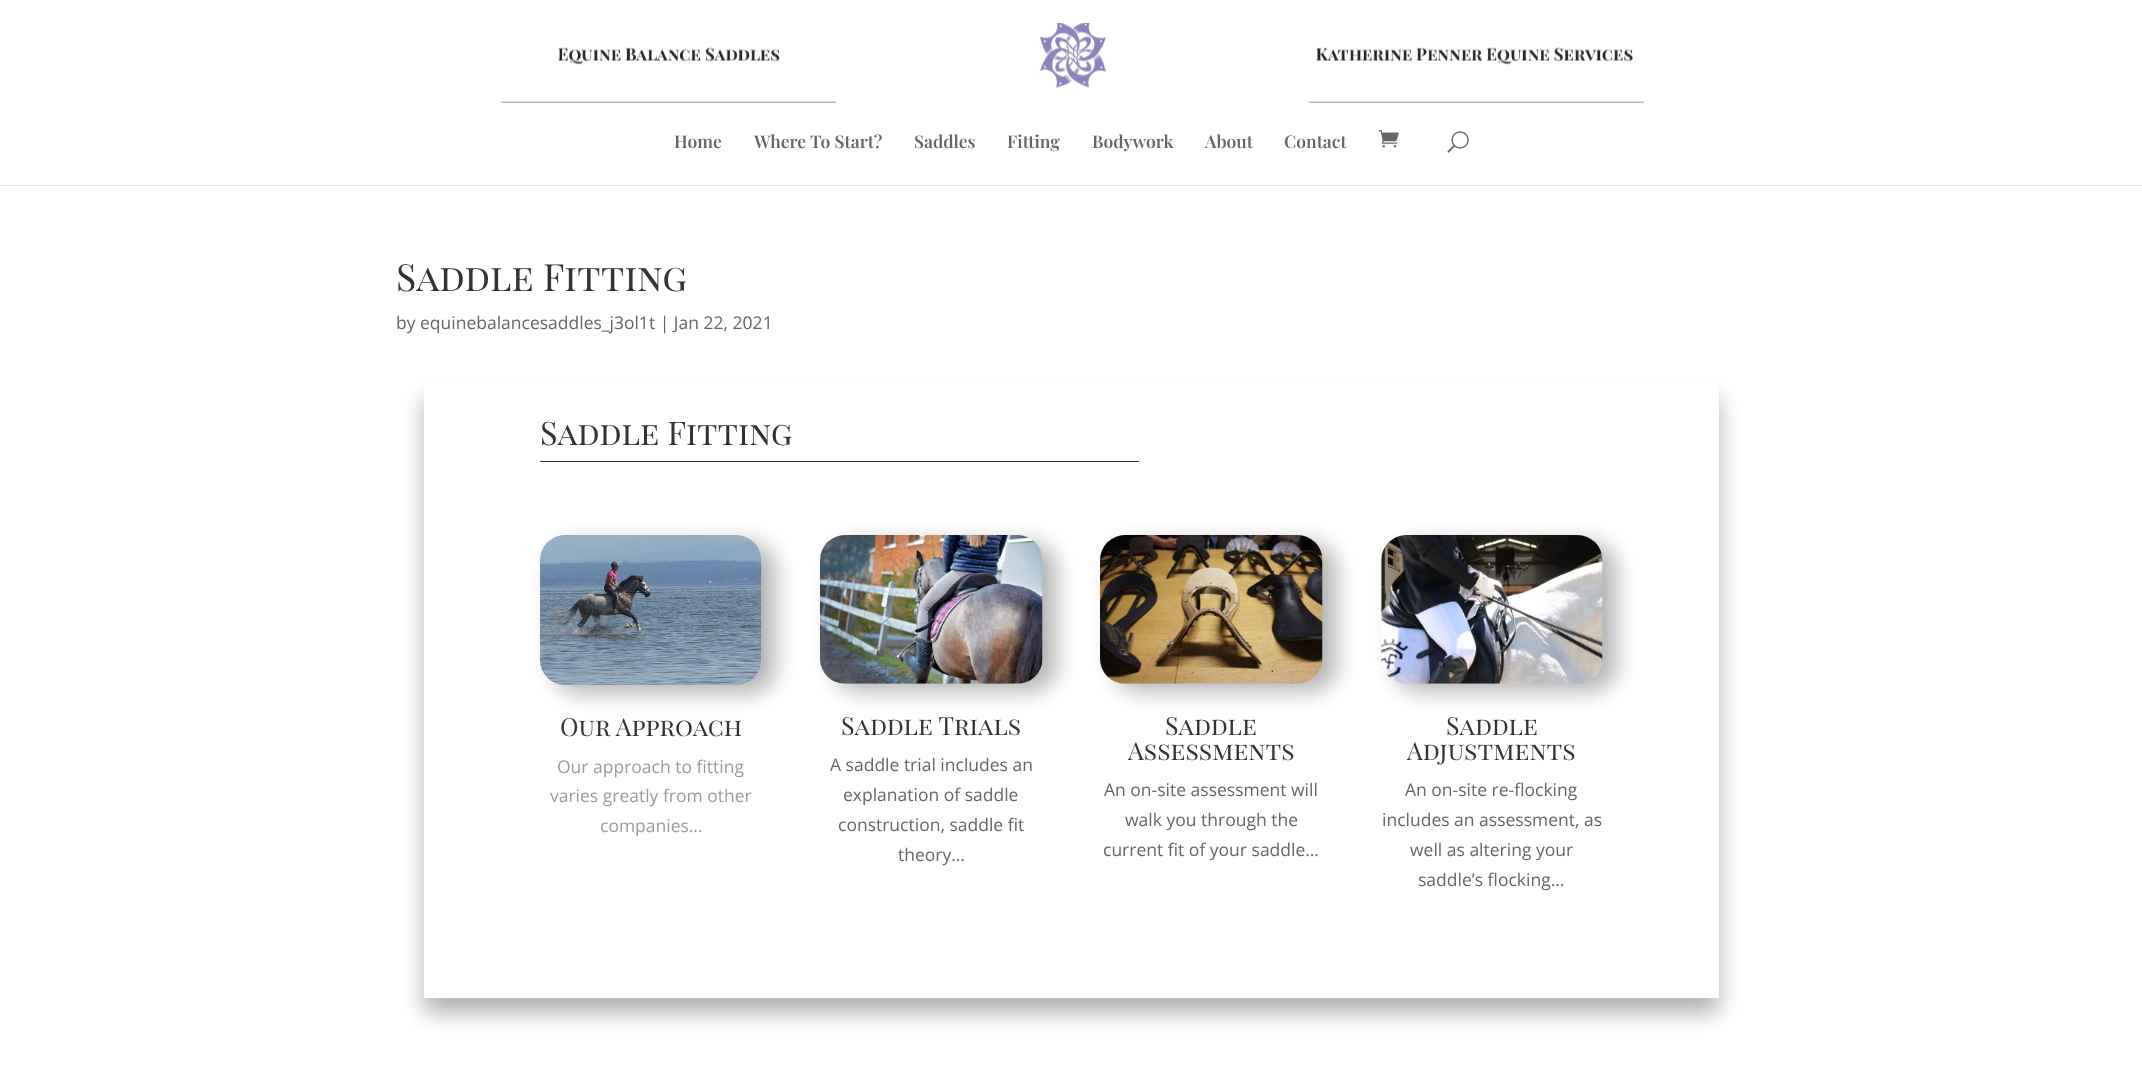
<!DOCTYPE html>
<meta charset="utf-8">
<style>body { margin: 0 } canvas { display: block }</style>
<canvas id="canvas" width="2142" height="1068"></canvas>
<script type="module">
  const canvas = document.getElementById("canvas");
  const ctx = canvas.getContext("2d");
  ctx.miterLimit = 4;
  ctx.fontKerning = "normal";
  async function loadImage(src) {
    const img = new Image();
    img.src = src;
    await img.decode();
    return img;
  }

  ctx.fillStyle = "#ffffff";
  ctx.fillRect(0, 0, 2142, 1068);
  ctx.fillStyle = "#e6e6e6";
  ctx.beginPath();
  ctx.moveTo(0, 185);
  ctx.lineTo(0, 186);
  ctx.lineTo(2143, 186);
  ctx.lineTo(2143, 1);
  ctx.lineTo(2142, 1);
  ctx.lineTo(2142, 185);
  ctx.closePath();
  ctx.fill();
  ctx.drawImage(await loadImage("img1.png"), 501, 23, 1143, 80);
  ctx.font = "600 17.5px Playfair Display";
  ctx.fillStyle = "#666666";
  ctx.fillText("Home", 674, 148);
  ctx.fillText("Where To Start?", 754, 148);
  ctx.fillText("Saddles", 914, 148);
  ctx.fillText("Fitting", 1007, 148);
  ctx.fillText("Bodywork", 1092, 148);
  ctx.fillText("About", 1205, 148);
  ctx.fillText("Contact", 1284, 148);
  ctx.drawImage(await loadImage("img2.png"), 1378, 130, 21, 18);
  ctx.drawImage(await loadImage("img3.png"), 1447, 131, 22, 22);
  ctx.font = "37.5px Playfair Display SC";
  ctx.fillStyle = "#333333";
  ctx.fillText("Saddle Fitting", 396, 291);
  ctx.font = "17.5px Open Sans";
  ctx.fillStyle = "#666666";
  ctx.fillText("by equinebalancesaddles_j3ol1t | Jan 22, 2021", 396, 329);
  ctx.fillStyle = "rgba(0, 0, 0, 0.3)";
  ctx.filter = "blur(11px)";
  ctx.beginPath();
  ctx.rect(424, 398, 1295, 615);
  ctx.fill();
  ctx.filter = "none";
  ctx.fillStyle = "#ffffff";
  ctx.fillRect(424, 383, 1295, 615);
  ctx.fillStyle = "#333333";
  ctx.fillRect(540, 461, 599, 1);
  ctx.font = "32.5px Playfair Display SC";
  ctx.fillText("Saddle Fitting", 540, 445);
  ctx.fillStyle = "rgba(0, 0, 0, 0.3)";
  ctx.filter = "blur(11px)";
  ctx.beginPath();
  ctx.roundRect(554, 543, 221, 150, 25);
  ctx.fill();
  ctx.filter = "none";
  ctx.drawImage(await loadImage("img4.png"), 540, 535, 222, 150);
  ctx.font = "25px Playfair Display SC";
  ctx.fillStyle = "#333333";
  ctx.fillText("Our Approach", 560, 736);
  ctx.font = "17.5px Open Sans";
  ctx.fillStyle = "#9b9b9b";
  ctx.fillText("Our approach to fitting", 557, 773);
  ctx.fillText("varies greatly from other", 550, 802);
  ctx.fillText("companies…", 600, 832);
  ctx.fillStyle = "rgba(0, 0, 0, 0.3)";
  ctx.filter = "blur(11px)";
  ctx.beginPath();
  ctx.roundRect(834, 543, 222, 148, 25);
  ctx.fill();
  ctx.filter = "none";
  ctx.drawImage(await loadImage("img5.png"), 820, 535, 223, 149);
  ctx.font = "25px Playfair Display SC";
  ctx.fillStyle = "#333333";
  ctx.fillText("Saddle Trials", 841, 735);
  ctx.font = "17.5px Open Sans";
  ctx.fillStyle = "#666666";
  ctx.fillText("A saddle trial includes an", 830, 771);
  ctx.fillText("explanation of saddle", 843, 801);
  ctx.fillText("construction, saddle fit", 838, 831);
  ctx.fillText("theory…", 898, 861);
  ctx.fillStyle = "rgba(0, 0, 0, 0.3)";
  ctx.filter = "blur(11px)";
  ctx.beginPath();
  ctx.roundRect(1114, 543, 222, 148, 25);
  ctx.fill();
  ctx.filter = "none";
  ctx.drawImage(await loadImage("img6.png"), 1100, 535, 223, 149);
  ctx.font = "25px Playfair Display SC";
  ctx.fillStyle = "#333333";
  ctx.fillText("Saddle", 1165, 735);
  ctx.fillText("Assessments", 1128, 760);
  ctx.font = "17.5px Open Sans";
  ctx.fillStyle = "#666666";
  ctx.fillText("An on-site assessment will", 1104, 796);
  ctx.fillText("walk you through the", 1125, 826);
  ctx.fillText("current fit of your saddle…", 1103, 856);
  ctx.fillStyle = "rgba(0, 0, 0, 0.3)";
  ctx.filter = "blur(11px)";
  ctx.beginPath();
  ctx.roundRect(1395, 543, 221, 148, 25);
  ctx.fill();
  ctx.filter = "none";
  ctx.drawImage(await loadImage("img7.png"), 1381, 535, 222, 149);
  ctx.font = "25px Playfair Display SC";
  ctx.fillStyle = "#333333";
  ctx.fillText("Saddle", 1446, 735);
  ctx.fillText("Adjustments", 1407, 760);
  ctx.font = "17.5px Open Sans";
  ctx.fillStyle = "#666666";
  ctx.fillText("An on-site re-flocking", 1405, 796);
  ctx.fillText("includes an assessment, as", 1382, 826);
  ctx.fillText("well as altering your", 1410, 856);
  ctx.fillText("saddle’s flocking…", 1418, 886);
</script>
